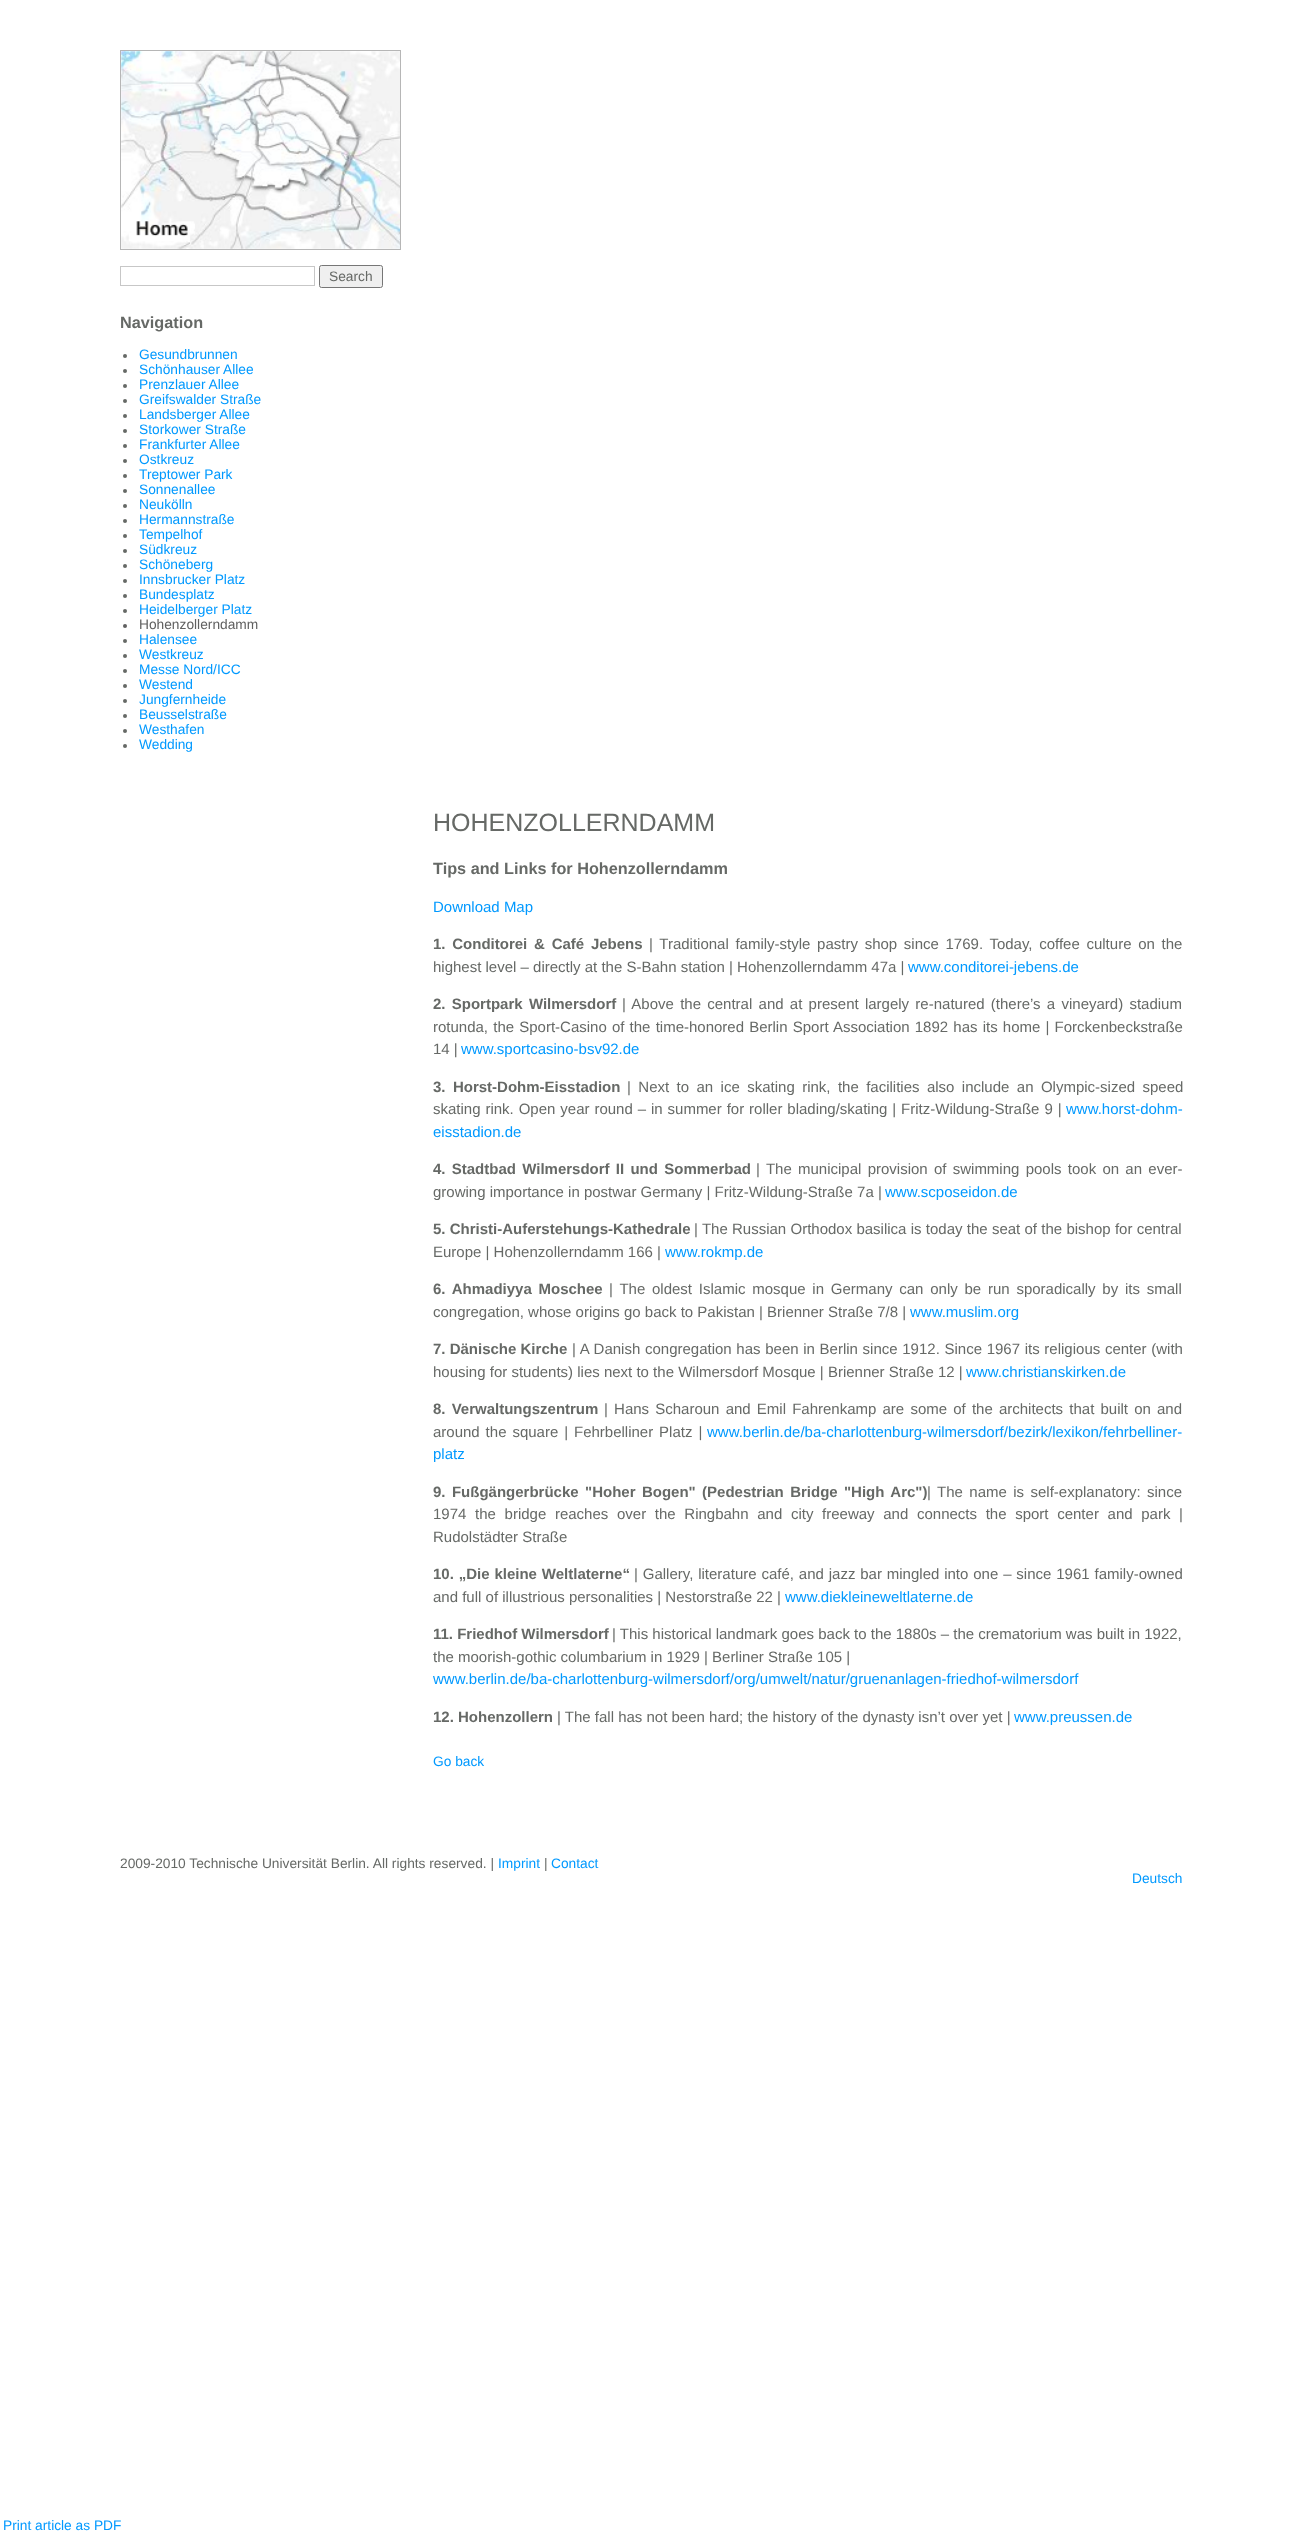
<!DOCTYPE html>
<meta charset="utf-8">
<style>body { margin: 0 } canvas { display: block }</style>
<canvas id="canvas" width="1302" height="2534"></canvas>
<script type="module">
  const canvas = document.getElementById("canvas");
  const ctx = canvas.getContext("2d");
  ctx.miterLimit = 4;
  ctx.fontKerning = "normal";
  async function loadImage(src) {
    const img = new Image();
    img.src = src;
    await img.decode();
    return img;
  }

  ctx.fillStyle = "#ffffff";
  ctx.fillRect(0, 0, 1302, 2534);
  ctx.strokeStyle = "#b6b6b6";
  ctx.strokeRect(120.5, 50.5, 280, 199);
  ctx.drawImage(await loadImage("img1.png"), 121, 51, 279, 198);
  ctx.strokeStyle = "#c7c7c7";
  ctx.strokeRect(120.5, 266.5, 194, 19);
  ctx.fillStyle = "#efefef";
  ctx.beginPath();
  ctx.roundRect(319.5, 265.5, 63, 22, 2);
  ctx.fill();
  ctx.strokeStyle = "#767676";
  ctx.stroke();
  ctx.font = "13.75px Liberation Sans";
  ctx.fillStyle = "#666966";
  ctx.fillText("Search", 329, 281);
  ctx.font = "bold 16.25px Liberation Sans";
  ctx.fillText("Navigation", 120, 328);
  ctx.beginPath();
  ctx.arc(125, 356, 2, 0, Math.PI * 2);
  ctx.fill();
  ctx.font = "13.75px Liberation Sans";
  ctx.fillStyle = "#0099ff";
  ctx.fillText("Gesundbrunnen", 139, 359);
  ctx.fillStyle = "#666966";
  ctx.beginPath();
  ctx.arc(125, 371, 2, 0, Math.PI * 2);
  ctx.fill();
  ctx.fillStyle = "#0099ff";
  ctx.fillText("Schönhauser Allee", 139, 374);
  ctx.fillStyle = "#666966";
  ctx.beginPath();
  ctx.arc(125, 386, 2, 0, Math.PI * 2);
  ctx.fill();
  ctx.fillStyle = "#0099ff";
  ctx.fillText("Prenzlauer Allee", 139, 389);
  ctx.fillStyle = "#666966";
  ctx.beginPath();
  ctx.arc(125, 401, 2, 0, Math.PI * 2);
  ctx.fill();
  ctx.fillStyle = "#0099ff";
  ctx.fillText("Greifswalder Straße", 139, 404);
  ctx.fillStyle = "#666966";
  ctx.beginPath();
  ctx.arc(125, 416, 2, 0, Math.PI * 2);
  ctx.fill();
  ctx.fillStyle = "#0099ff";
  ctx.fillText("Landsberger Allee", 139, 419);
  ctx.fillStyle = "#666966";
  ctx.beginPath();
  ctx.arc(125, 431, 2, 0, Math.PI * 2);
  ctx.fill();
  ctx.fillStyle = "#0099ff";
  ctx.fillText("Storkower Straße", 139, 434);
  ctx.fillStyle = "#666966";
  ctx.beginPath();
  ctx.arc(125, 446, 2, 0, Math.PI * 2);
  ctx.fill();
  ctx.fillStyle = "#0099ff";
  ctx.fillText("Frankfurter Allee", 139, 449);
  ctx.fillStyle = "#666966";
  ctx.beginPath();
  ctx.arc(125, 461, 2, 0, Math.PI * 2);
  ctx.fill();
  ctx.fillStyle = "#0099ff";
  ctx.fillText("Ostkreuz", 139, 464);
  ctx.fillStyle = "#666966";
  ctx.beginPath();
  ctx.arc(125, 476, 2, 0, Math.PI * 2);
  ctx.fill();
  ctx.fillStyle = "#0099ff";
  ctx.fillText("Treptower Park", 139, 479);
  ctx.fillStyle = "#666966";
  ctx.beginPath();
  ctx.arc(125, 491, 2, 0, Math.PI * 2);
  ctx.fill();
  ctx.fillStyle = "#0099ff";
  ctx.fillText("Sonnenallee", 139, 494);
  ctx.fillStyle = "#666966";
  ctx.beginPath();
  ctx.arc(125, 506, 2, 0, Math.PI * 2);
  ctx.fill();
  ctx.fillStyle = "#0099ff";
  ctx.fillText("Neukölln", 139, 509);
  ctx.fillStyle = "#666966";
  ctx.beginPath();
  ctx.arc(125, 521, 2, 0, Math.PI * 2);
  ctx.fill();
  ctx.fillStyle = "#0099ff";
  ctx.fillText("Hermannstraße", 139, 524);
  ctx.fillStyle = "#666966";
  ctx.beginPath();
  ctx.arc(125, 536, 2, 0, Math.PI * 2);
  ctx.fill();
  ctx.fillStyle = "#0099ff";
  ctx.fillText("Tempelhof", 139, 539);
  ctx.fillStyle = "#666966";
  ctx.beginPath();
  ctx.arc(125, 551, 2, 0, Math.PI * 2);
  ctx.fill();
  ctx.fillStyle = "#0099ff";
  ctx.fillText("Südkreuz", 139, 554);
  ctx.fillStyle = "#666966";
  ctx.beginPath();
  ctx.arc(125, 566, 2, 0, Math.PI * 2);
  ctx.fill();
  ctx.fillStyle = "#0099ff";
  ctx.fillText("Schöneberg", 139, 569);
  ctx.fillStyle = "#666966";
  ctx.beginPath();
  ctx.arc(125, 581, 2, 0, Math.PI * 2);
  ctx.fill();
  ctx.fillStyle = "#0099ff";
  ctx.fillText("Innsbrucker Platz", 139, 584);
  ctx.fillStyle = "#666966";
  ctx.beginPath();
  ctx.arc(125, 596, 2, 0, Math.PI * 2);
  ctx.fill();
  ctx.fillStyle = "#0099ff";
  ctx.fillText("Bundesplatz", 139, 599);
  ctx.fillStyle = "#666966";
  ctx.beginPath();
  ctx.arc(125, 611, 2, 0, Math.PI * 2);
  ctx.fill();
  ctx.fillStyle = "#0099ff";
  ctx.fillText("Heidelberger Platz", 139, 614);
  ctx.fillStyle = "#606060";
  ctx.beginPath();
  ctx.arc(125, 626, 2, 0, Math.PI * 2);
  ctx.fill();
  ctx.fillText("Hohenzollerndamm", 139, 629);
  ctx.fillStyle = "#666966";
  ctx.beginPath();
  ctx.arc(125, 641, 2, 0, Math.PI * 2);
  ctx.fill();
  ctx.fillStyle = "#0099ff";
  ctx.fillText("Halensee", 139, 644);
  ctx.fillStyle = "#666966";
  ctx.beginPath();
  ctx.arc(125, 656, 2, 0, Math.PI * 2);
  ctx.fill();
  ctx.fillStyle = "#0099ff";
  ctx.fillText("Westkreuz", 139, 659);
  ctx.fillStyle = "#666966";
  ctx.beginPath();
  ctx.arc(125, 671, 2, 0, Math.PI * 2);
  ctx.fill();
  ctx.fillStyle = "#0099ff";
  ctx.fillText("Messe Nord/ICC", 139, 674);
  ctx.fillStyle = "#666966";
  ctx.beginPath();
  ctx.arc(125, 686, 2, 0, Math.PI * 2);
  ctx.fill();
  ctx.fillStyle = "#0099ff";
  ctx.fillText("Westend", 139, 689);
  ctx.fillStyle = "#666966";
  ctx.beginPath();
  ctx.arc(125, 701, 2, 0, Math.PI * 2);
  ctx.fill();
  ctx.fillStyle = "#0099ff";
  ctx.fillText("Jungfernheide", 139, 704);
  ctx.fillStyle = "#666966";
  ctx.beginPath();
  ctx.arc(125, 716, 2, 0, Math.PI * 2);
  ctx.fill();
  ctx.fillStyle = "#0099ff";
  ctx.fillText("Beusselstraße", 139, 719);
  ctx.fillStyle = "#666966";
  ctx.beginPath();
  ctx.arc(125, 731, 2, 0, Math.PI * 2);
  ctx.fill();
  ctx.fillStyle = "#0099ff";
  ctx.fillText("Westhafen", 139, 734);
  ctx.fillStyle = "#666966";
  ctx.beginPath();
  ctx.arc(125, 746, 2, 0, Math.PI * 2);
  ctx.fill();
  ctx.fillStyle = "#0099ff";
  ctx.fillText("Wedding", 139, 749);
  ctx.font = "25px Liberation Sans";
  ctx.fillStyle = "#666966";
  ctx.fillText("HOHENZOLLERNDAMM", 433, 831);
  ctx.font = "bold 16.25px Liberation Sans";
  ctx.fillText("Tips and Links for Hohenzollerndamm", 433, 874);
  ctx.font = "15px Liberation Sans";
  ctx.fillStyle = "#0099ff";
  ctx.fillText("Download Map", 433, 912);
  ctx.wordSpacing = "2.6px";
  ctx.font = "bold 15px Liberation Sans";
  ctx.fillStyle = "#666966";
  ctx.fillText("1. Conditorei & Café Jebens", 433, 949);
  ctx.wordSpacing = "2.5px";
  ctx.font = "15px Liberation Sans";
  ctx.fillText("| Traditional family-style pastry shop since 1769. Today, coffee culture on the", 649, 949);
  ctx.wordSpacing = "0px";
  ctx.fillText("highest level – directly at the S-Bahn station | Hohenzollerndamm 47a |", 433, 972);
  ctx.fillStyle = "#0099ff";
  ctx.fillText("www.conditorei-jebens.de", 908, 972);
  ctx.wordSpacing = "2.1px";
  ctx.font = "bold 15px Liberation Sans";
  ctx.fillStyle = "#666966";
  ctx.fillText("2. Sportpark Wilmersdorf", 433, 1009);
  ctx.font = "15px Liberation Sans";
  ctx.fillText("| Above the central and at present largely re-natured (there’s a vineyard) stadium", 622, 1009);
  ctx.wordSpacing = "1px";
  ctx.fillText("rotunda, the Sport-Casino of the time-honored Berlin Sport Association 1892 has its home | Forckenbeckstraße", 433, 1032);
  ctx.wordSpacing = "0px";
  ctx.fillText("14 |", 433, 1054);
  ctx.fillStyle = "#0099ff";
  ctx.fillText("www.sportcasino-bsv92.de", 461, 1054);
  ctx.wordSpacing = "3.25px";
  ctx.font = "bold 15px Liberation Sans";
  ctx.fillStyle = "#666966";
  ctx.fillText("3. Horst-Dohm-Eisstadion", 433, 1092);
  ctx.font = "15px Liberation Sans";
  ctx.fillText("| Next to an ice skating rink, the facilities also include an Olympic-sized speed", 627, 1092);
  ctx.wordSpacing = "0.75px";
  ctx.fillText("skating rink. Open year round – in summer for roller blading/skating | Fritz-Wildung-Straße 9 |", 433, 1114);
  ctx.wordSpacing = "0px";
  ctx.fillStyle = "#0099ff";
  ctx.fillText("www.horst-dohm-", 1066, 1114);
  ctx.fillText("eisstadion.de", 433, 1137);
  ctx.wordSpacing = "2.1px";
  ctx.font = "bold 15px Liberation Sans";
  ctx.fillStyle = "#666966";
  ctx.fillText("4. Stadtbad Wilmersdorf II und Sommerbad", 433, 1174);
  ctx.font = "15px Liberation Sans";
  ctx.fillText("| The municipal provision of swimming pools took on an ever-", 756, 1174);
  ctx.wordSpacing = "0px";
  ctx.fillText("growing importance in postwar Germany | Fritz-Wildung-Straße 7a |", 433, 1197);
  ctx.fillStyle = "#0099ff";
  ctx.fillText("www.scposeidon.de", 885, 1197);
  ctx.font = "bold 15px Liberation Sans";
  ctx.fillStyle = "#666966";
  ctx.fillText("5. Christi-Auferstehungs-Kathedrale", 433, 1234);
  ctx.wordSpacing = "0.1px";
  ctx.font = "15px Liberation Sans";
  ctx.fillText("| The Russian Orthodox basilica is today the seat of the bishop for central", 694, 1234);
  ctx.wordSpacing = "0px";
  ctx.fillText("Europe | Hohenzollerndamm 166 |", 433, 1257);
  ctx.fillStyle = "#0099ff";
  ctx.fillText("www.rokmp.de", 665, 1257);
  ctx.wordSpacing = "2.6px";
  ctx.font = "bold 15px Liberation Sans";
  ctx.fillStyle = "#666966";
  ctx.fillText("6. Ahmadiyya Moschee", 433, 1294);
  ctx.font = "15px Liberation Sans";
  ctx.fillText("| The oldest Islamic mosque in Germany can only be run sporadically by its small", 609, 1294);
  ctx.wordSpacing = "0px";
  ctx.fillText("congregation, whose origins go back to Pakistan | Brienner Straße 7/8 |", 433, 1317);
  ctx.fillStyle = "#0099ff";
  ctx.fillText("www.muslim.org", 910, 1317);
  ctx.font = "bold 15px Liberation Sans";
  ctx.fillStyle = "#666966";
  ctx.fillText("7. Dänische Kirche", 433, 1354);
  ctx.wordSpacing = "0.5px";
  ctx.font = "15px Liberation Sans";
  ctx.fillText("| A Danish congregation has been in Berlin since 1912. Since 1967 its religious center (with", 572, 1354);
  ctx.wordSpacing = "0px";
  ctx.fillText("housing for students) lies next to the Wilmersdorf Mosque | Brienner Straße 12 |", 433, 1377);
  ctx.fillStyle = "#0099ff";
  ctx.fillText("www.christianskirken.de", 966, 1377);
  ctx.wordSpacing = "2px";
  ctx.font = "bold 15px Liberation Sans";
  ctx.fillStyle = "#666966";
  ctx.fillText("8. Verwaltungszentrum", 433, 1414);
  ctx.font = "15px Liberation Sans";
  ctx.fillText("| Hans Scharoun and Emil Fahrenkamp are some of the architects that built on and", 604, 1414);
  ctx.wordSpacing = "1.75px";
  ctx.fillText("around the square | Fehrbelliner Platz |", 433, 1437);
  ctx.wordSpacing = "0px";
  ctx.fillStyle = "#0099ff";
  ctx.fillText("www.berlin.de/ba-charlottenburg-wilmersdorf/bezirk/lexikon/fehrbelliner-", 707, 1437);
  ctx.fillText("platz", 433, 1459);
  ctx.wordSpacing = "2.25px";
  ctx.font = "bold 15px Liberation Sans";
  ctx.fillStyle = "#666966";
  ctx.fillText("9. Fußgängerbrücke \"Hoher Bogen\" (Pedestrian Bridge", 433, 1497);
  ctx.fillText("\"High Arc\")", 844, 1497);
  ctx.font = "15px Liberation Sans";
  ctx.fillText("| The name is self-explanatory: since", 927, 1497);
  ctx.wordSpacing = "4.5px";
  ctx.fillText("1974 the bridge reaches over the Ringbahn and city freeway and connects the sport center and park |", 433, 1519);
  ctx.wordSpacing = "0px";
  ctx.fillText("Rudolstädter Straße", 433, 1542);
  ctx.wordSpacing = "0.7px";
  ctx.font = "bold 15px Liberation Sans";
  ctx.fillText("10. „Die kleine Weltlaterne“", 433, 1579);
  ctx.font = "15px Liberation Sans";
  ctx.fillText("| Gallery, literature café, and jazz bar mingled into one – since 1961 family-owned", 634, 1579);
  ctx.wordSpacing = "0px";
  ctx.fillText("and full of illustrious personalities | Nestorstraße 22 |", 433, 1602);
  ctx.fillStyle = "#0099ff";
  ctx.fillText("www.diekleineweltlaterne.de", 785, 1602);
  ctx.font = "bold 15px Liberation Sans";
  ctx.fillStyle = "#666966";
  ctx.fillText("11. Friedhof Wilmersdorf", 433, 1639);
  ctx.font = "15px Liberation Sans";
  ctx.fillText("| This historical landmark goes back to the 1880s – the crematorium was built in 1922,", 612, 1639);
  ctx.fillText("the moorish-gothic columbarium in 1929 | Berliner Straße 105 |", 433, 1662);
  ctx.fillStyle = "#0099ff";
  ctx.fillText("www.berlin.de/ba-charlottenburg-wilmersdorf/org/umwelt/natur/gruenanlagen-friedhof-wilmersdorf", 433, 1684);
  ctx.font = "bold 15px Liberation Sans";
  ctx.fillStyle = "#666966";
  ctx.fillText("12. Hohenzollern", 433, 1722);
  ctx.font = "15px Liberation Sans";
  ctx.fillText("| The fall has not been hard; the history of the dynasty isn’t over yet |", 557, 1722);
  ctx.fillStyle = "#0099ff";
  ctx.fillText("www.preussen.de", 1014, 1722);
  ctx.font = "13.75px Liberation Sans";
  ctx.fillText("Go back", 433, 1766);
  ctx.fillText("Print article as PDF", 3, 2530);
  ctx.fillStyle = "#666966";
  ctx.fillText("2009-2010 Technische Universität Berlin. All rights reserved. |", 120, 1868);
  ctx.fillStyle = "#0099ff";
  ctx.fillText("Imprint", 498, 1868);
  ctx.fillStyle = "#666966";
  ctx.fillText("|", 544, 1868);
  ctx.fillStyle = "#0099ff";
  ctx.fillText("Contact", 551, 1868);
  ctx.fillText("Deutsch", 1132, 1883);
</script>
